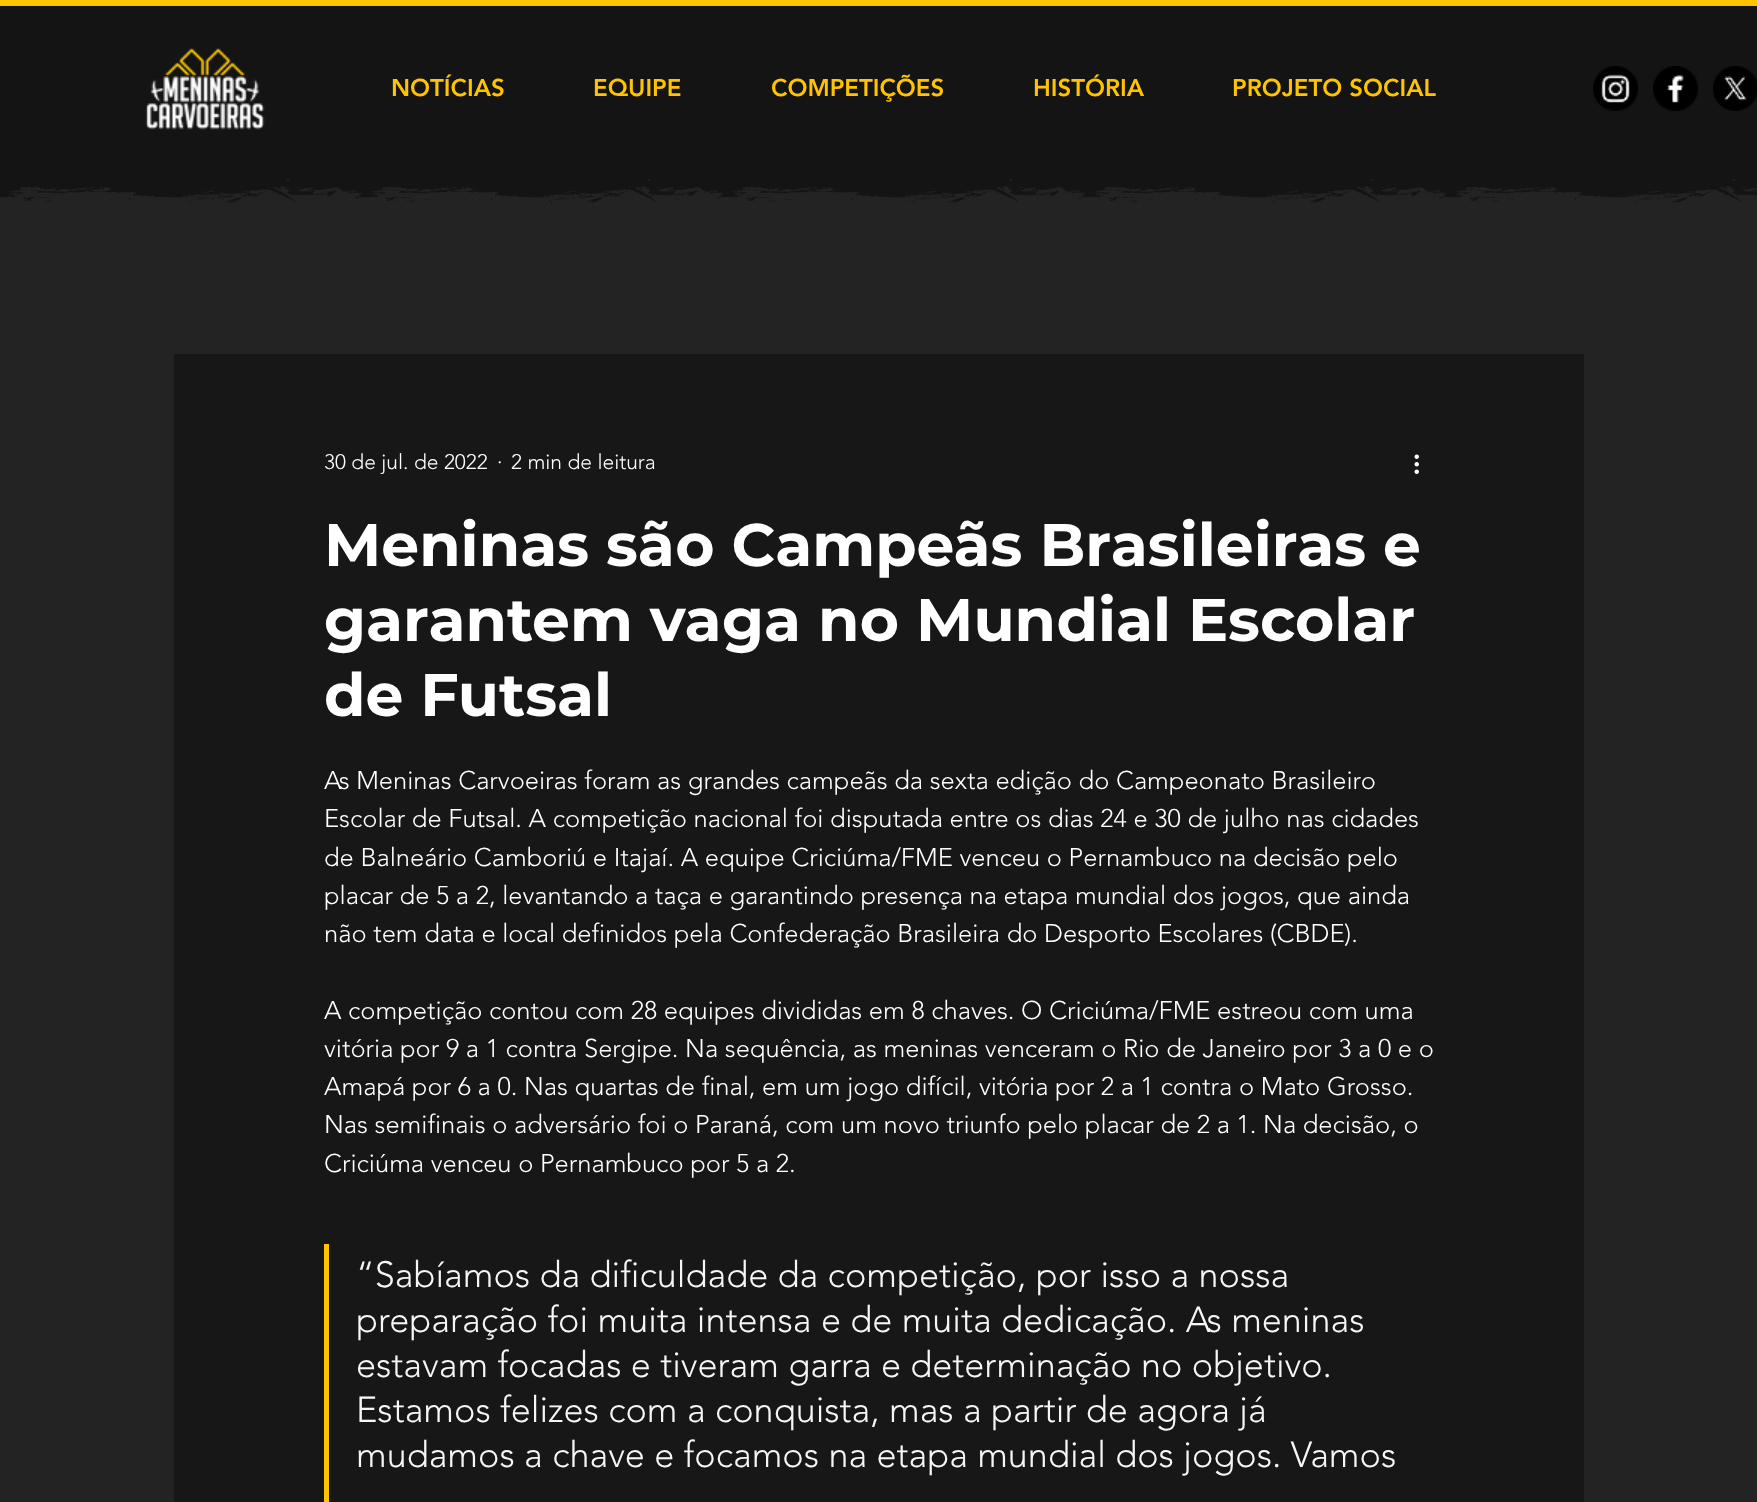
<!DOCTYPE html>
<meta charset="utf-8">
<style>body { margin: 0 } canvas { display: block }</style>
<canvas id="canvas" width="1757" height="1502"></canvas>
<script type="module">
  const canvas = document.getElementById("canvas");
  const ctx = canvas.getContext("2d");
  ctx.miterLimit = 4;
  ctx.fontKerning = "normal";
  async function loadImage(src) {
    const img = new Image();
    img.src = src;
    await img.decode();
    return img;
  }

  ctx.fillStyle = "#ffc400";
  ctx.fillRect(0, 0, 1757, 1502);
  ctx.fillStyle = "#141414";
  ctx.fillRect(0, 6, 1757, 171);
  ctx.drawImage(await loadImage("img1.png"), 145, 47, 120, 83);
  ctx.font = "900 24px 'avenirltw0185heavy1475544'";
  ctx.fillStyle = "#ffc400";
  ctx.fillText("NOTÍCIAS", 391, 96);
  ctx.fillText("EQUIPE", 593, 96);
  ctx.fillText("COMPETIÇÕES", 771, 96);
  ctx.fillText("HISTÓRIA", 1033, 96);
  ctx.fillText("PROJETO SOCIAL", 1232, 96);
  ctx.drawImage(await loadImage("img2.png"), 1593, 66, 45, 45);
  ctx.drawImage(await loadImage("img3.png"), 1653, 66, 45, 45);
  ctx.drawImage(await loadImage("img4.png"), 1713, 66, 44, 45);
  ctx.fillStyle = "#242323";
  ctx.fillRect(0, 178, 1757, 1324);
  ctx.drawImage(await loadImage("img5.png"), 0, 177, 1757, 30);
  ctx.fillStyle = "#171717";
  ctx.fillRect(174, 354, 1410, 1148);
  ctx.font = "300 21px 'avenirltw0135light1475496'";
  ctx.fillStyle = "#ffffff";
  ctx.fillText("30 de jul. de 2022", 324, 469);
  ctx.fillText("·", 497, 469);
  ctx.fillText("2 min de leitura", 511, 469);
  ctx.drawImage(await loadImage("img6.png"), 1414, 454, 5, 20);
  ctx.font = "bold 60px Montserrat";
  ctx.fillText("Meninas são Campeãs Brasileiras e", 324, 566);
  ctx.fillText("garantem vaga no Mundial Escolar", 324, 641);
  ctx.fillText("de Futsal", 324, 716);
  ctx.font = "300 25.5px 'avenirltw0135light1475496'";
  ctx.fillText("As Meninas Carvoeiras foram as grandes campeãs da sexta edição do Campeonato Brasileiro", 324, 789);
  ctx.fillText("Escolar de Futsal. A competição nacional foi disputada entre os dias 24 e 30 de julho nas cidades", 324, 827);
  ctx.fillText("de Balneário Camboriú e Itajaí. A equipe Criciúma/FME venceu o Pernambuco na decisão pelo", 324, 866);
  ctx.fillText("placar de 5 a 2, levantando a taça e garantindo presença na etapa mundial dos jogos, que ainda", 324, 904);
  ctx.fillText("não tem data e local definidos pela Confederação Brasileira do Desporto Escolares (CBDE).", 324, 942);
  ctx.fillText("A competição contou com 28 equipes divididas em 8 chaves. O Criciúma/FME estreou com uma", 324, 1019);
  ctx.fillText("vitória por 9 a 1 contra Sergipe. Na sequência, as meninas venceram o Rio de Janeiro por 3 a 0 e o", 324, 1057);
  ctx.fillText("Amapá por 6 a 0. Nas quartas de final, em um jogo difícil, vitória por 2 a 1 contra o Mato Grosso.", 324, 1095);
  ctx.fillText("Nas semifinais o adversário foi o Paraná, com um novo triunfo pelo placar de 2 a 1. Na decisão, o", 324, 1133);
  ctx.fillText("Criciúma venceu o Pernambuco por 5 a 2.", 324, 1172);
  ctx.fillStyle = "#ffc400";
  ctx.fillRect(324, 1244, 5, 258);
  ctx.font = "300 36px 'avenirltw0135light1475496'";
  ctx.fillStyle = "#f6f6f6";
  ctx.fillText("“Sabíamos da dificuldade da competição, por isso a nossa", 356, 1287);
  ctx.fillText("preparação foi muita intensa e de muita dedicação. As meninas", 356, 1332);
  ctx.fillText("estavam focadas e tiveram garra e determinação no objetivo.", 356, 1377);
  ctx.fillText("Estamos felizes com a conquista, mas a partir de agora já", 356, 1422);
  ctx.fillText("mudamos a chave e focamos na etapa mundial dos jogos. Vamos", 356, 1467);
</script>
